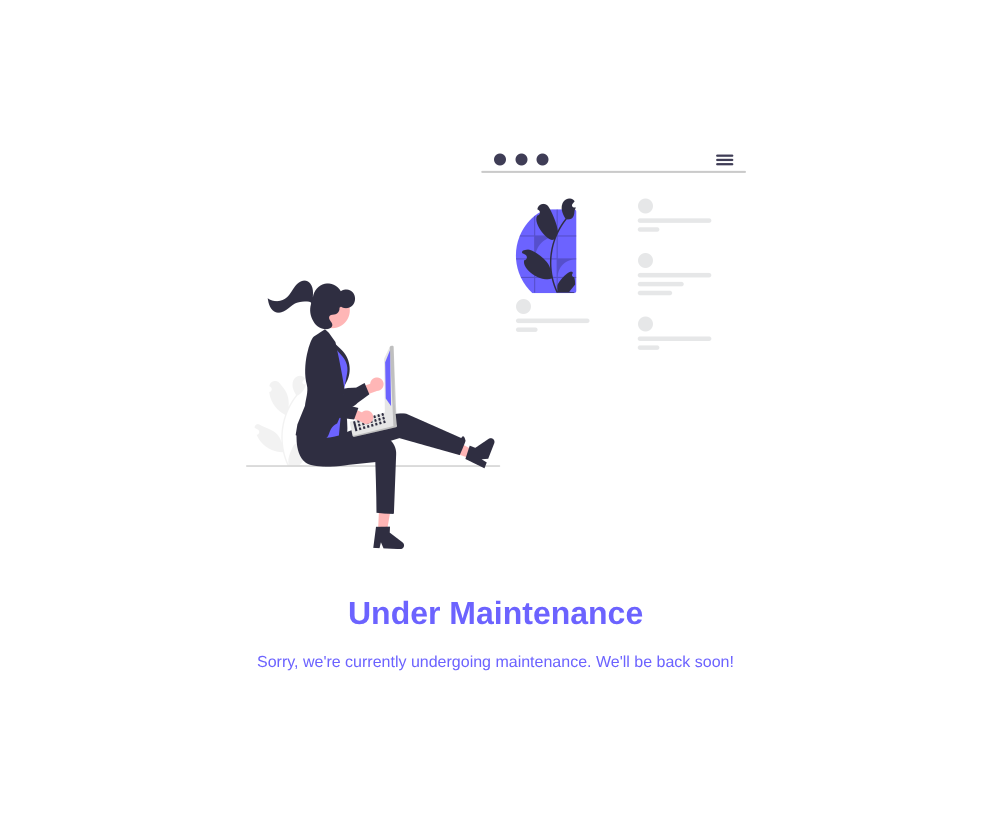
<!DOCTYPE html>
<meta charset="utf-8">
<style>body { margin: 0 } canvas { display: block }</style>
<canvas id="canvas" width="991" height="840"></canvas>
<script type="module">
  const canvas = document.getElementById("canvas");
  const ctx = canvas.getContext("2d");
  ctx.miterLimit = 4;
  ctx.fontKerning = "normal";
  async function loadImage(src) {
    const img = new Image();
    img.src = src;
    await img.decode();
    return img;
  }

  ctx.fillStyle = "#ffffff";
  ctx.fillRect(0, 0, 991, 840);
  ctx.drawImage(await loadImage("img1.png"), 246, 153, 500, 396);
  ctx.font = "bold 32px Liberation Sans";
  ctx.fillStyle = "#6c63ff";
  ctx.fillText("Under Maintenance", 348, 624);
  ctx.font = "16px Liberation Sans";
  ctx.fillText("Sorry, we're currently undergoing maintenance. We'll be back soon!", 257, 667);
</script>
